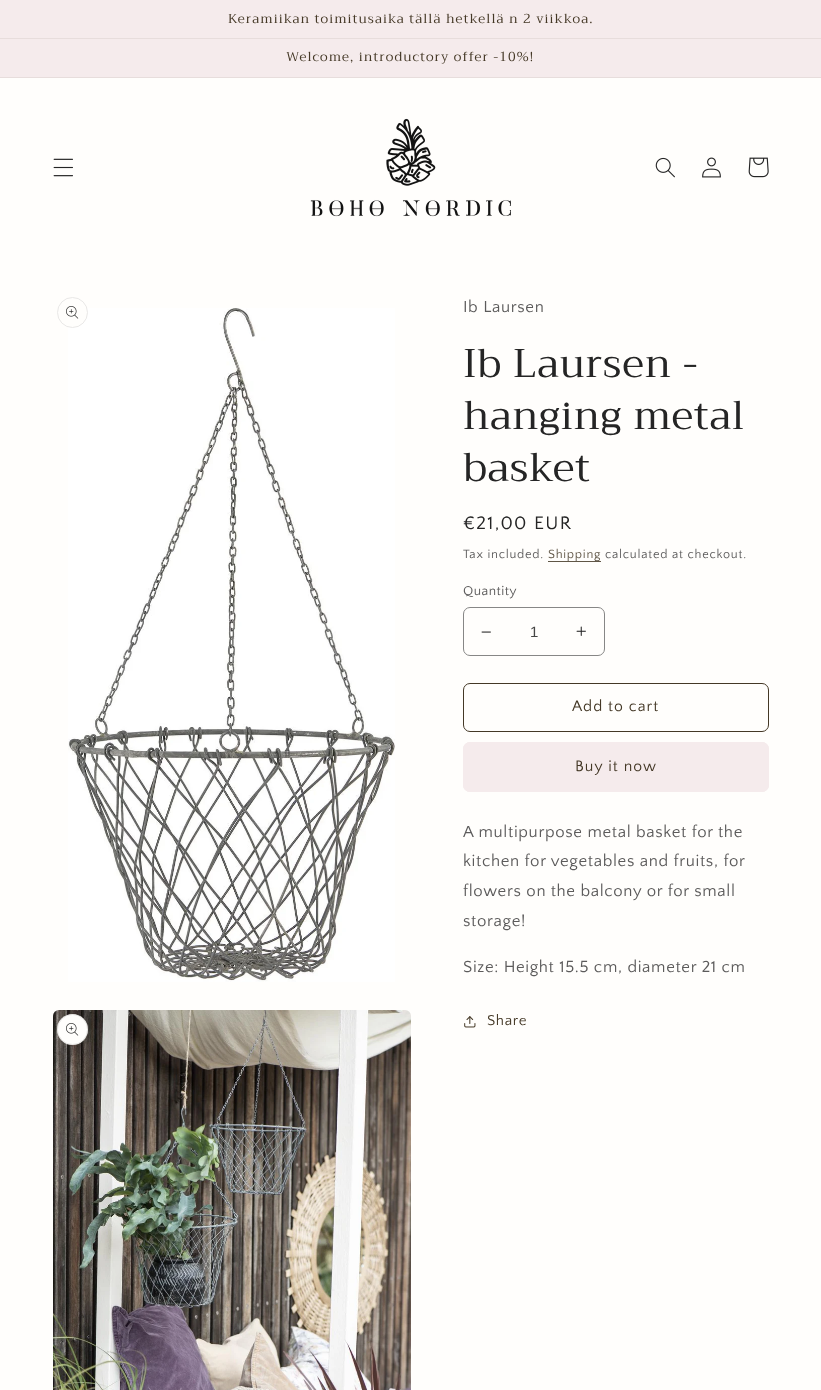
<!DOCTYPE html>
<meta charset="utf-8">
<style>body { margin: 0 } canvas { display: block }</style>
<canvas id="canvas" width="821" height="1390"></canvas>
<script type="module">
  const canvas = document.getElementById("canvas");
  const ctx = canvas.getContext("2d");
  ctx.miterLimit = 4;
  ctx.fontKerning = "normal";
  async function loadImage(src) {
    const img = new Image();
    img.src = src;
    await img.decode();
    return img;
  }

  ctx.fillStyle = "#fffefc";
  ctx.fillRect(0, 0, 821, 1390);
  ctx.fillStyle = "#f5ebec";
  ctx.fillRect(0, 0, 821, 38);
  ctx.fillStyle = "#e7dddc";
  ctx.fillRect(0, 38, 821, 1);
  ctx.letterSpacing = "1.05px";
  ctx.font = "13px Trirong";
  ctx.fillStyle = "#443826";
  ctx.fillText("Keramiikan toimitusaika tällä hetkellä n 2 viikkoa.", 228, 23);
  ctx.fillStyle = "#f5ebec";
  ctx.fillRect(0, 39, 821, 38);
  ctx.fillStyle = "#e7dddc";
  ctx.fillRect(0, 77, 821, 1);
  ctx.fillStyle = "#443826";
  ctx.fillText("Welcome, introductory offer -10%!", 286, 61);
  ctx.drawImage(await loadImage("img1.png"), 53, 158, 20, 19);
  ctx.drawImage(await loadImage("img2.png"), 310, 118, 201, 99);
  ctx.drawImage(await loadImage("img3.png"), 655, 157, 20, 21);
  ctx.drawImage(await loadImage("img4.png"), 702, 157, 19, 21);
  ctx.drawImage(await loadImage("img5.png"), 748, 157, 21, 21);
  ctx.drawImage(await loadImage("img7.png"), 68, 308, 327, 674);
  ctx.fillStyle = "#fffefc";
  ctx.beginPath();
  ctx.arc(72.5, 312.5, 15, 0, Math.PI * 2);
  ctx.fill();
  ctx.strokeStyle = "#e9e8e7";
  ctx.stroke();
  ctx.drawImage(await loadImage("img6.png"), 66, 306, 13, 13);
  ctx.drawImage(await loadImage("img8.png"), 53, 1010, 358, 380);
  ctx.beginPath();
  ctx.arc(72.5, 1029.5, 15.5, 0, Math.PI * 2);
  ctx.fill();
  ctx.beginPath();
  ctx.arc(72.5, 1029.5, 15, 0, Math.PI * 2);
  ctx.strokeStyle = "rgba(37, 37, 37, 0.1)";
  ctx.stroke();
  ctx.drawImage(await loadImage("img6.png"), 66, 1023, 13, 13);
  ctx.letterSpacing = "0.65px";
  ctx.font = "16.75px Quattrocento Sans";
  ctx.fillStyle = "#5c5b5b";
  ctx.fillText("Ib Laursen", 463, 312);
  ctx.letterSpacing = "0.6px";
  ctx.font = "40px Trirong";
  ctx.fillStyle = "#252525";
  ctx.fillText("Ib Laursen -", 463, 377);
  ctx.fillText("hanging metal", 463, 429);
  ctx.fillText("basket", 463, 481);
  ctx.letterSpacing = "1.4px";
  ctx.font = "19px Quattrocento Sans";
  ctx.fillText("€21,00 EUR", 463, 529);
  ctx.letterSpacing = "0.75px";
  ctx.font = "12.6px Quattrocento Sans";
  ctx.fillStyle = "#5c5b5b";
  ctx.fillText("Tax included.", 463, 558);
  ctx.fillStyle = "#605646";
  ctx.fillRect(548, 561, 53, 1);
  ctx.fillStyle = "#5f5545";
  ctx.fillText("Shipping", 548, 558);
  ctx.fillStyle = "#5c5b5b";
  ctx.fillText("calculated at checkout.", 605, 558);
  ctx.letterSpacing = "0.5px";
  ctx.font = "13.5px Quattrocento Sans";
  ctx.fillText("Quantity", 463, 595);
  ctx.drawImage(await loadImage("img9.png"), 481, 631, 10, 2);
  ctx.drawImage(await loadImage("img10.png"), 576, 626, 10, 10);
  ctx.beginPath();
  ctx.roundRect(463.5, 607.5, 141, 48, 6.5);
  ctx.strokeStyle = "#878786";
  ctx.stroke();
  ctx.letterSpacing = "0px";
  ctx.font = "15px Liberation Sans";
  ctx.fillStyle = "#464645";
  ctx.fillText("1", 530, 637);
  ctx.beginPath();
  ctx.roundRect(463.5, 683.5, 305, 48, 6.5);
  ctx.strokeStyle = "#443826";
  ctx.stroke();
  ctx.letterSpacing = "1.05px";
  ctx.font = "15.75px Quattrocento Sans";
  ctx.fillStyle = "#443826";
  ctx.fillText("Add to cart", 572, 711);
  ctx.fillStyle = "#f5ebec";
  ctx.beginPath();
  ctx.roundRect(463, 742, 306, 50, 7);
  ctx.fill();
  ctx.beginPath();
  ctx.roundRect(463.5, 742.5, 305, 49, 6.5);
  ctx.strokeStyle = "#f5ebec";
  ctx.stroke();
  ctx.fillStyle = "#443826";
  ctx.fillText("Buy it now", 575, 771);
  ctx.letterSpacing = "0.65px";
  ctx.font = "16.75px Quattrocento Sans";
  ctx.fillStyle = "#5c5b5b";
  ctx.fillText("A multipurpose metal basket for the", 463, 837);
  ctx.fillText("kitchen for vegetables and fruits, for", 463, 866);
  ctx.fillText("flowers on the balcony or for small", 463, 896);
  ctx.fillText("storage!", 463, 926);
  ctx.fillText("Size: Height 15.5 cm, diameter 21 cm", 463, 972);
  ctx.drawImage(await loadImage("img11.png"), 464, 1016, 12, 12);
  ctx.font = "15px Quattrocento Sans";
  ctx.fillStyle = "#443826";
  ctx.fillText("Share", 487, 1025);
</script>
